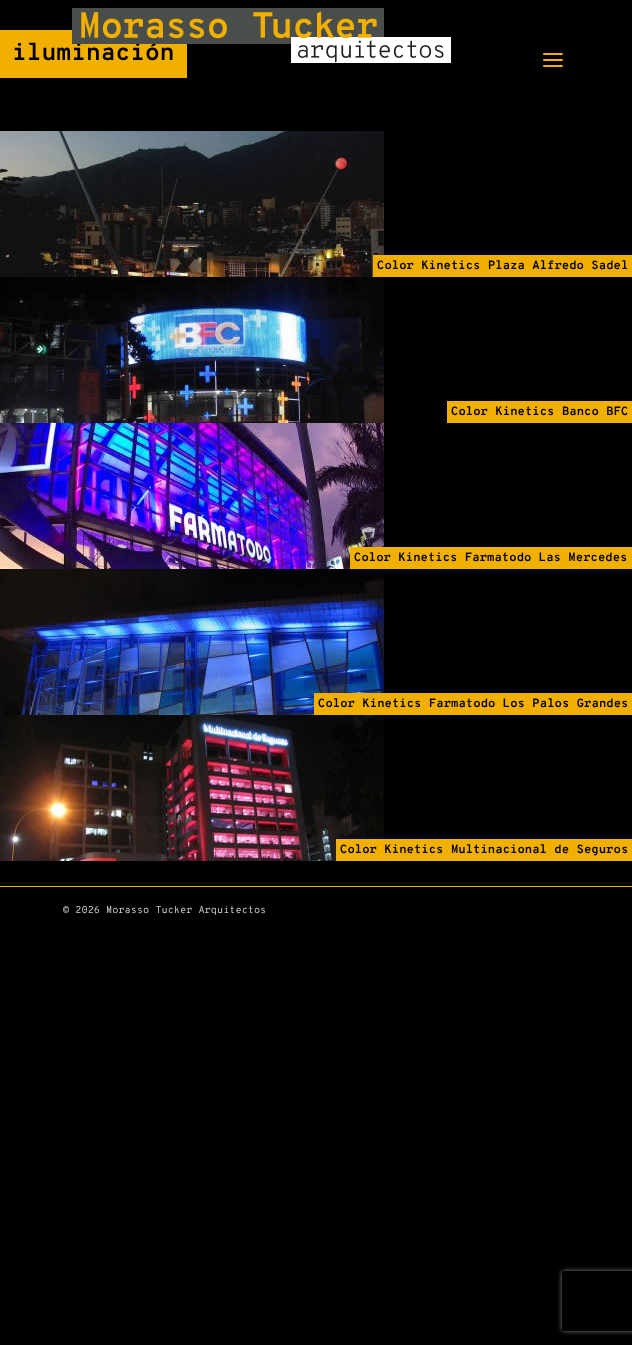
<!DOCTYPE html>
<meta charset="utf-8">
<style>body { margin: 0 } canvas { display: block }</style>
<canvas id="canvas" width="632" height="1345"></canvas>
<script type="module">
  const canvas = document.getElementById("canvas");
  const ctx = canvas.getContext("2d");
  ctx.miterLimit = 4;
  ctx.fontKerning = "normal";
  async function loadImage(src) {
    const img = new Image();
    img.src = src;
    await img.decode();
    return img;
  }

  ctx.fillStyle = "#000000";
  ctx.fillRect(0, 0, 632, 1345);
  ctx.fillStyle = "#f1af00";
  ctx.fillRect(0, 30, 187, 48);
  ctx.font = "bold 24px Overpass Mono";
  ctx.fillStyle = "#000000";
  ctx.fillText("iluminación", 12, 60);
  ctx.drawImage(await loadImage("img1.png"), 72, 8, 379, 55);
  ctx.drawImage(await loadImage("img2.png"), 543, 53, 20, 14);
  ctx.drawImage(await loadImage("img3.png"), 0, 131, 384, 146);
  ctx.fillStyle = "#f1af00";
  ctx.fillRect(373, 255, 259, 22);
  ctx.font = "bold 12px Overpass Mono";
  ctx.fillStyle = "#000000";
  ctx.fillText("Color Kinetics Plaza Alfredo Sadel", 377, 269);
  ctx.drawImage(await loadImage("img4.png"), 0, 277, 384, 146);
  ctx.fillStyle = "#f1af00";
  ctx.fillRect(447, 401, 185, 22);
  ctx.fillStyle = "#000000";
  ctx.fillText("Color Kinetics Banco BFC", 451, 415);
  ctx.drawImage(await loadImage("img5.png"), 0, 423, 384, 146);
  ctx.fillStyle = "#f1af00";
  ctx.fillRect(350, 547, 282, 22);
  ctx.fillStyle = "#000000";
  ctx.fillText("Color Kinetics Farmatodo Las Mercedes", 354, 561);
  ctx.drawImage(await loadImage("img6.png"), 0, 569, 384, 146);
  ctx.fillStyle = "#f1af00";
  ctx.fillRect(314, 693, 318, 22);
  ctx.fillStyle = "#000000";
  ctx.fillText("Color Kinetics Farmatodo Los Palos Grandes", 318, 707);
  ctx.drawImage(await loadImage("img7.png"), 0, 715, 384, 146);
  ctx.fillStyle = "#f1af00";
  ctx.fillRect(336, 839, 296, 22);
  ctx.fillStyle = "#000000";
  ctx.fillText("Color Kinetics Multinacional de Seguros", 340, 853);
  ctx.fillStyle = "#f1af00";
  ctx.fillRect(0, 886, 632, 1);
  ctx.font = "10px Overpass Mono";
  ctx.fillStyle = "#cccccc";
  ctx.fillText("© 2026 Morasso Tucker Arquitectos", 63, 913);
  ctx.save();
  ctx.beginPath();
  ctx.moveTo(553, 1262);
  ctx.lineTo(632, 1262);
  ctx.lineTo(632, 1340);
  ctx.lineTo(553, 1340);
  ctx.closePath();
  ctx.moveTo(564, 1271);
  ctx.lineTo(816, 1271);
  ctx.bezierCurveTo(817, 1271, 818, 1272, 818, 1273);
  ctx.lineTo(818, 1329);
  ctx.bezierCurveTo(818, 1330, 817, 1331, 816, 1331);
  ctx.lineTo(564, 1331);
  ctx.bezierCurveTo(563, 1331, 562, 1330, 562, 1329);
  ctx.lineTo(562, 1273);
  ctx.bezierCurveTo(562, 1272, 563, 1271, 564, 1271);
  ctx.closePath();
  ctx.clip("evenodd");
  ctx.fillStyle = "#808080";
  ctx.filter = "blur(2.5px)";
  ctx.beginPath();
  ctx.roundRect(562, 1271, 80, 60, 2);
  ctx.fill();
  ctx.filter = "none";
  ctx.restore();
</script>
